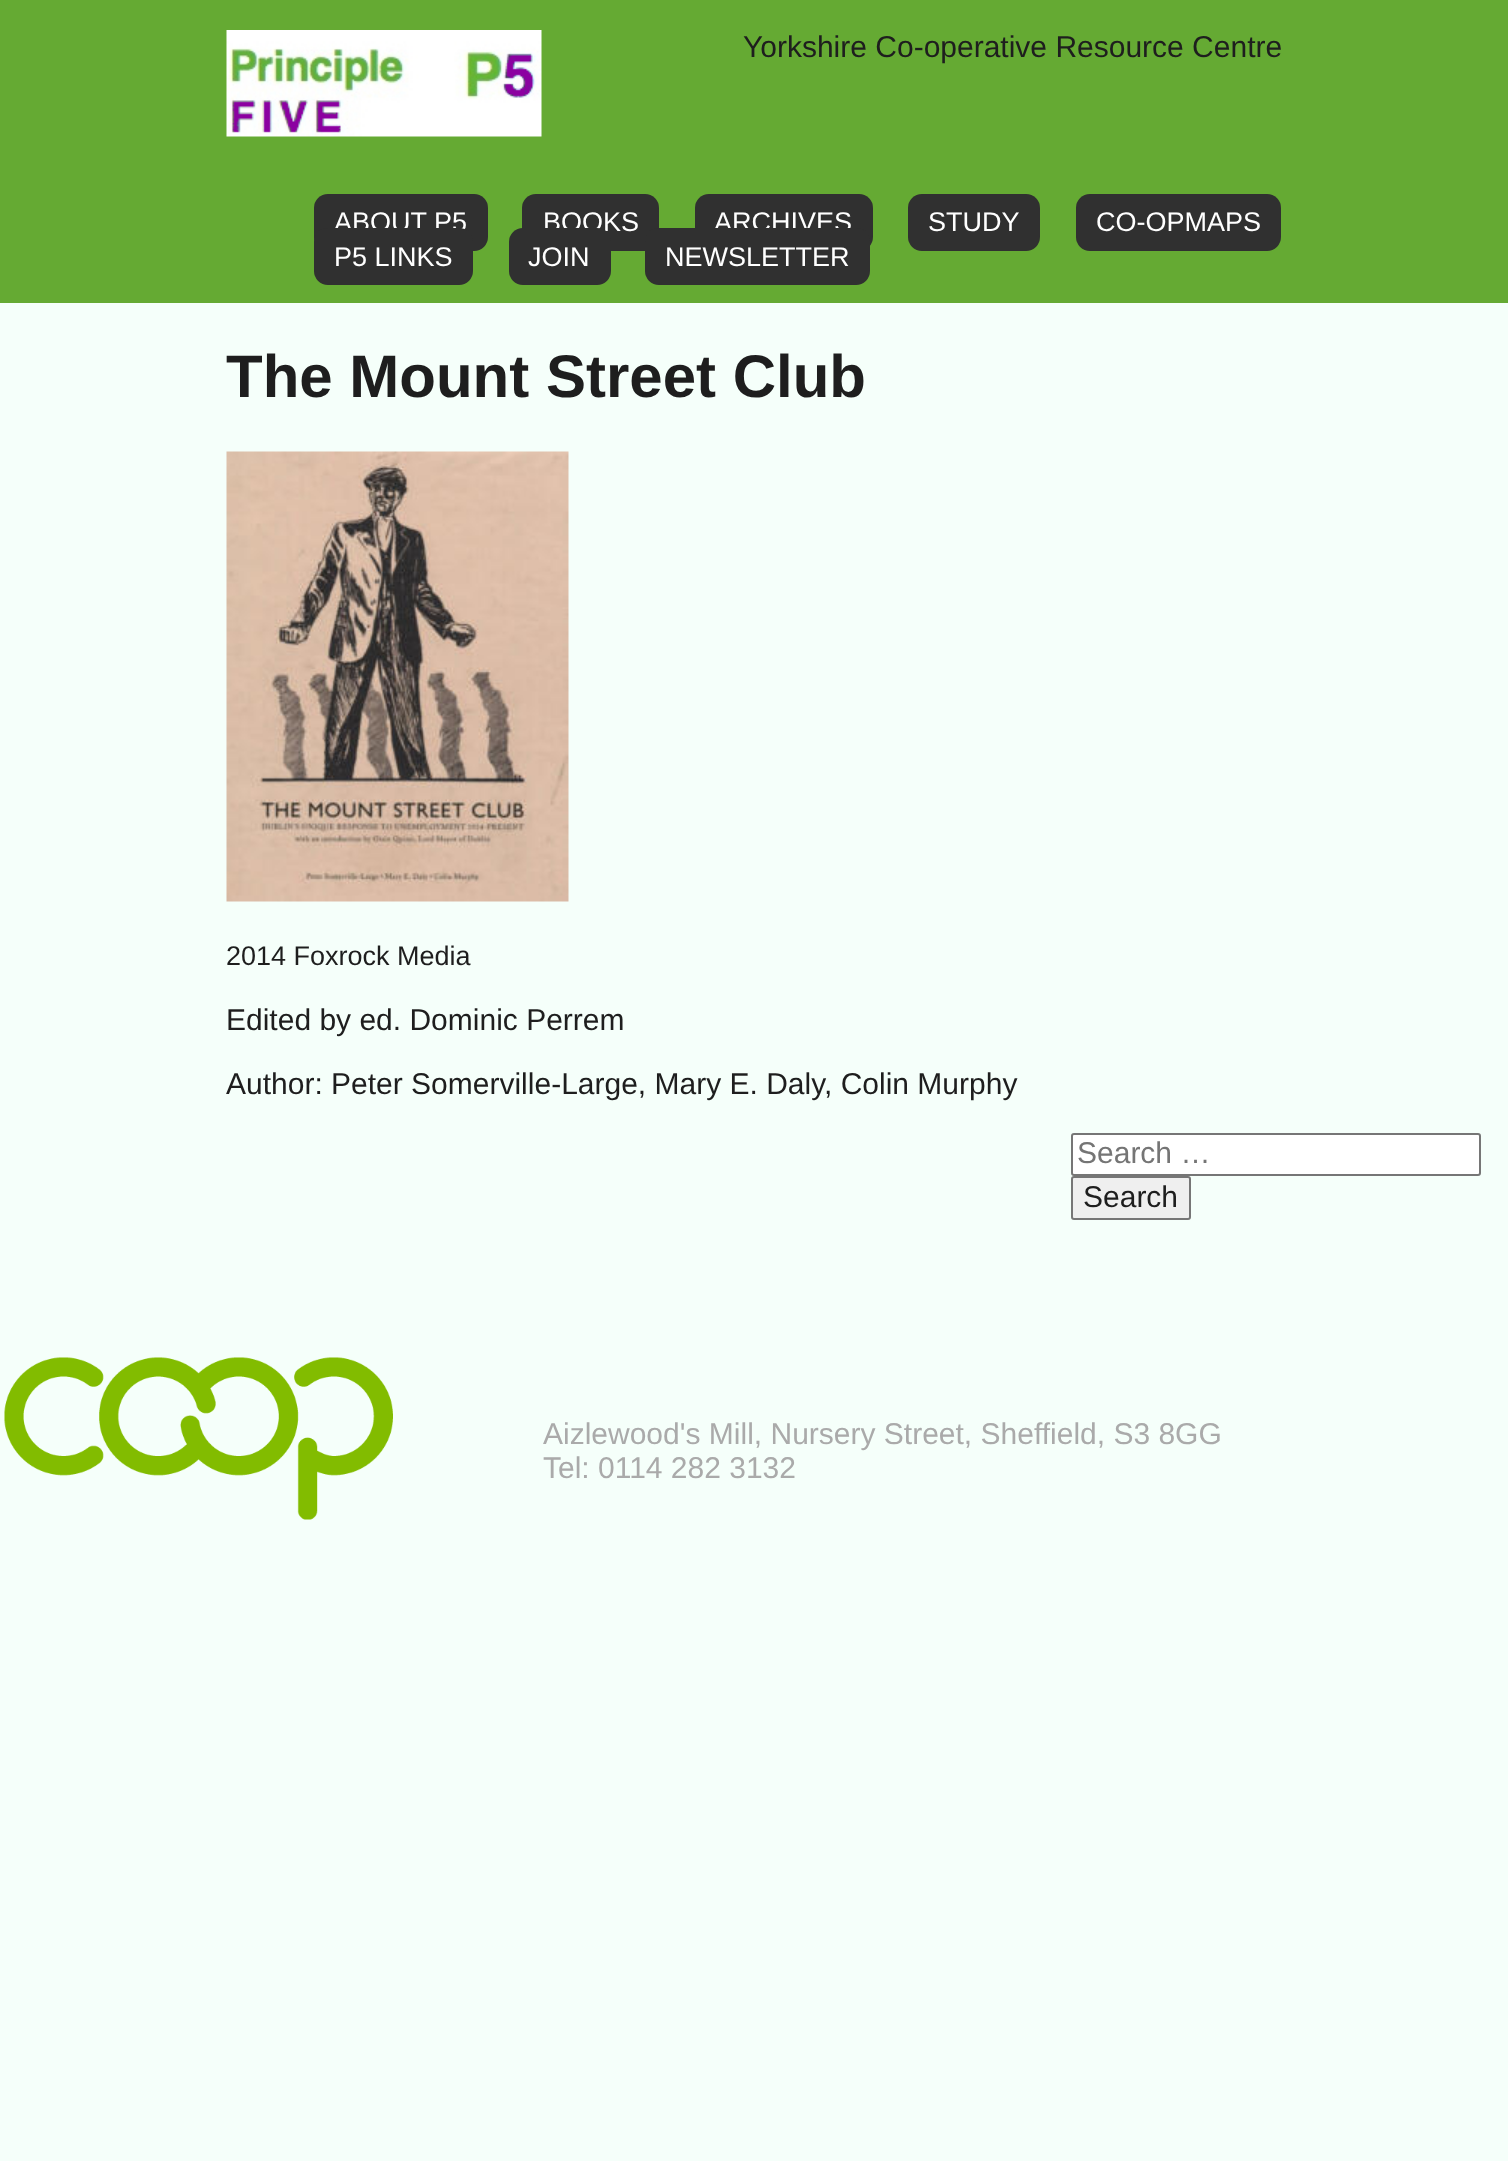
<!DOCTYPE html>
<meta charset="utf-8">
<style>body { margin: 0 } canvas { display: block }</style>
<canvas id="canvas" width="1508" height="2161"></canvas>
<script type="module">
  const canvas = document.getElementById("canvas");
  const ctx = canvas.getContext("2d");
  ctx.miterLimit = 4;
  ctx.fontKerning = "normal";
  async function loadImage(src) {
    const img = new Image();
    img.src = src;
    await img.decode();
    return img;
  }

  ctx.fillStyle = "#f5fffa";
  ctx.fillRect(0, 0, 1508, 2161);
  ctx.fillStyle = "#65aa33";
  ctx.fillRect(0, 0, 1508, 303);
  ctx.drawImage(await loadImage("img1.png"), 226, 30, 316, 107);
  ctx.font = "30px Liberation Sans";
  ctx.fillStyle = "#1e1e1e";
  ctx.fillText("Yorkshire Co-operative Resource Centre", 743, 57);
  ctx.fillStyle = "#303030";
  ctx.beginPath();
  ctx.roundRect(314, 194, 174, 57, 14);
  ctx.fill();
  ctx.font = "27px Liberation Sans";
  ctx.fillStyle = "#ffffff";
  ctx.fillText("ABOUT P5", 334, 231);
  ctx.fillStyle = "#303030";
  ctx.beginPath();
  ctx.roundRect(522, 194, 137, 57, 14);
  ctx.fill();
  ctx.fillStyle = "#ffffff";
  ctx.fillText("BOOKS", 543, 231);
  ctx.fillStyle = "#303030";
  ctx.beginPath();
  ctx.roundRect(695, 194, 178, 57, 14);
  ctx.fill();
  ctx.fillStyle = "#ffffff";
  ctx.fillText("ARCHIVES", 714, 231);
  ctx.fillStyle = "#303030";
  ctx.beginPath();
  ctx.roundRect(908, 194, 132, 57, 14);
  ctx.fill();
  ctx.fillStyle = "#ffffff";
  ctx.fillText("STUDY", 928, 231);
  ctx.fillStyle = "#303030";
  ctx.beginPath();
  ctx.roundRect(1076, 194, 205, 57, 14);
  ctx.fill();
  ctx.fillStyle = "#ffffff";
  ctx.fillText("CO-OPMAPS", 1096, 231);
  ctx.fillStyle = "#303030";
  ctx.beginPath();
  ctx.roundRect(314, 228, 159, 57, 14);
  ctx.fill();
  ctx.fillStyle = "#ffffff";
  ctx.fillText("P5 LINKS", 334, 266);
  ctx.fillStyle = "#303030";
  ctx.beginPath();
  ctx.roundRect(509, 228, 102, 57, 14);
  ctx.fill();
  ctx.fillStyle = "#ffffff";
  ctx.fillText("JOIN", 528, 266);
  ctx.fillStyle = "#303030";
  ctx.beginPath();
  ctx.roundRect(645, 228, 225, 57, 14);
  ctx.fill();
  ctx.fillStyle = "#ffffff";
  ctx.fillText("NEWSLETTER", 665, 266);
  ctx.font = "bold 60px Liberation Sans";
  ctx.fillStyle = "#1e1e1e";
  ctx.fillText("The Mount Street Club", 226, 397);
  ctx.drawImage(await loadImage("img2.png"), 226, 451, 343, 451);
  ctx.font = "27px Liberation Sans";
  ctx.fillText("2014 Foxrock Media", 226, 965);
  ctx.font = "30px Liberation Sans";
  ctx.fillText("Edited by ed. Dominic Perrem", 226, 1030);
  ctx.fillText("Author: Peter Somerville-Large, Mary E. Daly, Colin Murphy", 226, 1094);
  ctx.fillStyle = "#ffffff";
  ctx.beginPath();
  ctx.roundRect(1072, 1134, 408, 41, 2);
  ctx.fill();
  ctx.strokeStyle = "#767676";
  ctx.lineWidth = 2;
  ctx.stroke();
  ctx.fillStyle = "#757575";
  ctx.fillText("Search …", 1077, 1163);
  ctx.fillStyle = "#efefef";
  ctx.beginPath();
  ctx.roundRect(1072, 1177, 118, 42, 2);
  ctx.fill();
  ctx.stroke();
  ctx.fillStyle = "#1e1e1e";
  ctx.fillText("Search", 1083, 1207);
  ctx.drawImage(await loadImage("img3.png"), 4, 1357, 389, 163);
  ctx.fillStyle = "#aaaaaa";
  ctx.fillText("Aizlewood's Mill, Nursery Street, Sheffield, S3 8GG", 543, 1444);
  ctx.fillText("Tel: 0114 282 3132", 543, 1478);
</script>
